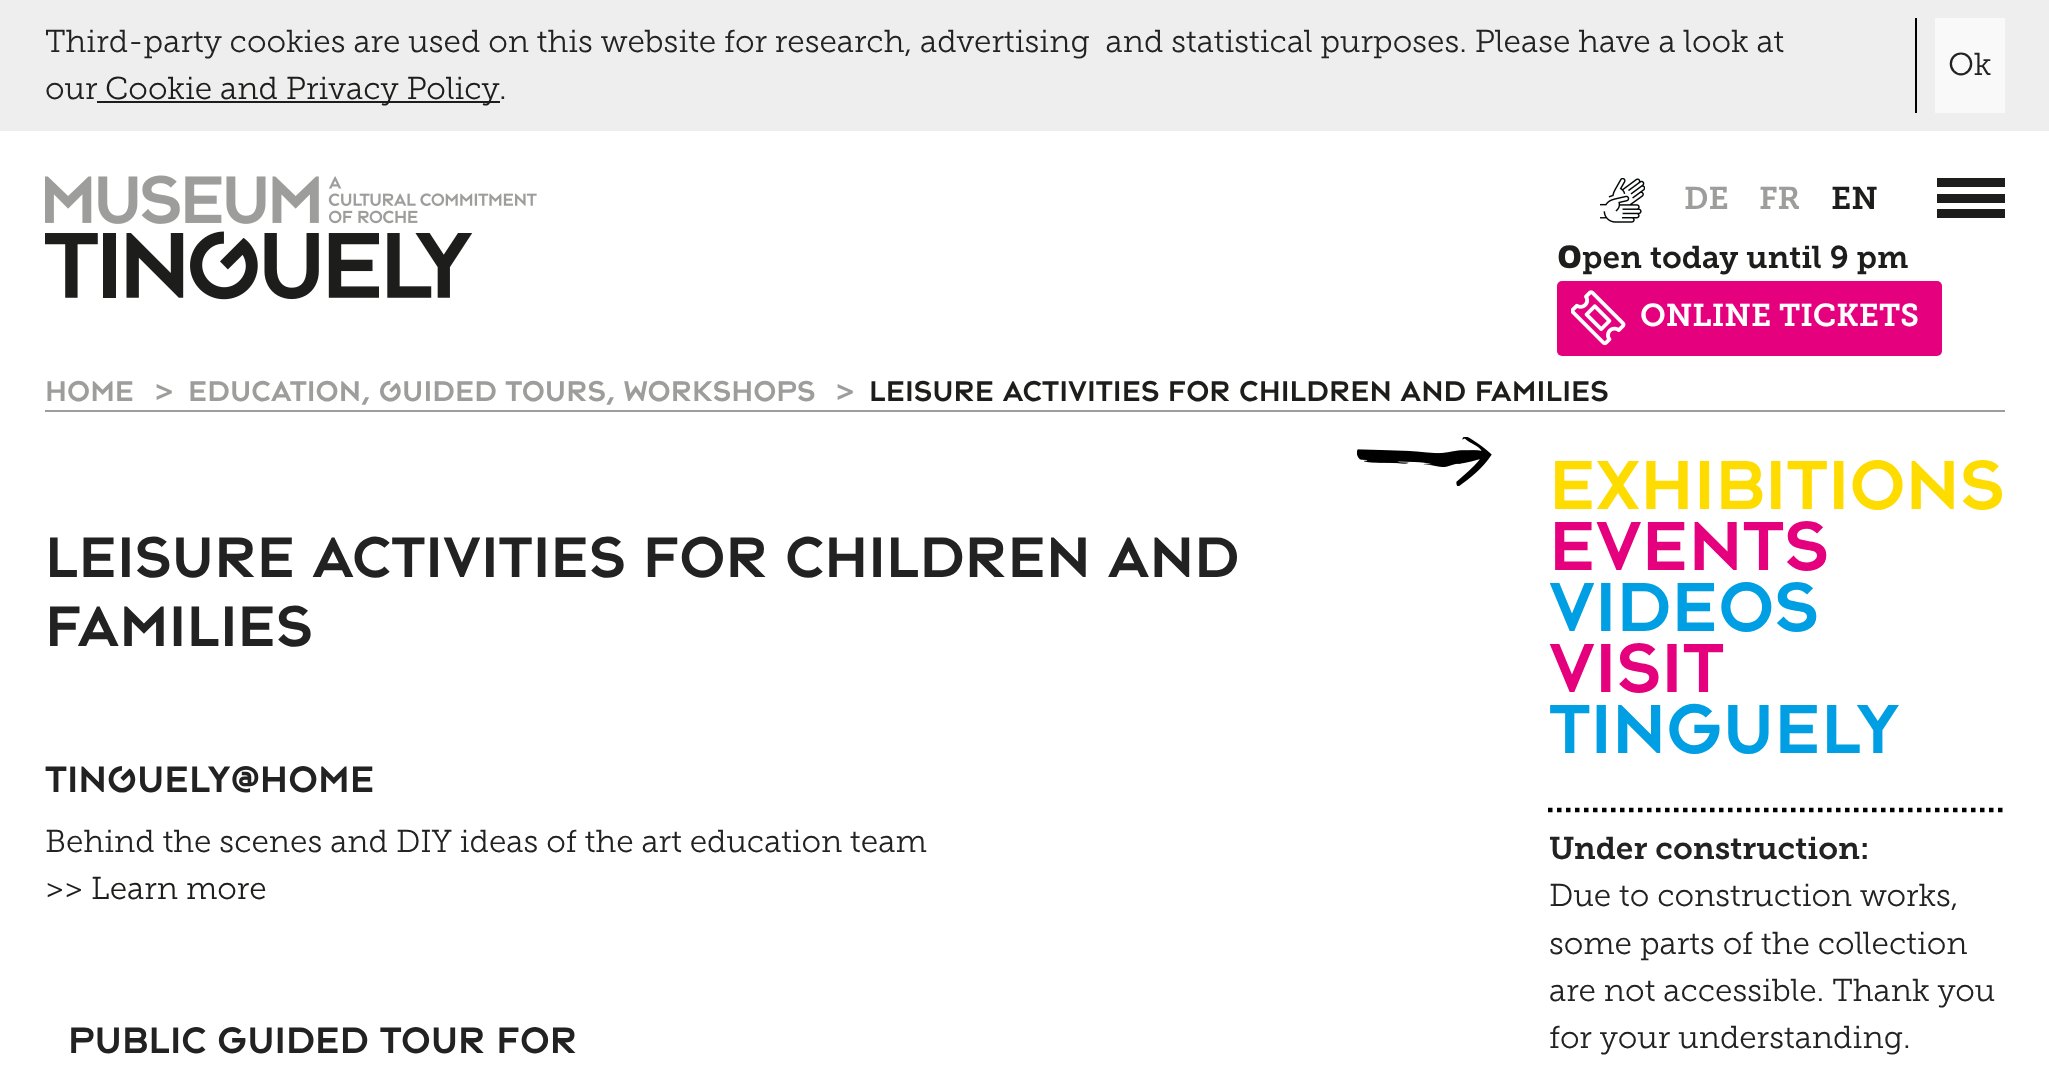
<!DOCTYPE html>
<meta charset="utf-8">
<style>body { margin: 0 } canvas { display: block }</style>
<canvas id="canvas" width="2049" height="1079"></canvas>
<script type="module">
  const canvas = document.getElementById("canvas");
  const ctx = canvas.getContext("2d");
  ctx.miterLimit = 4;
  ctx.fontKerning = "normal";
  async function loadImage(src) {
    const img = new Image();
    img.src = src;
    await img.decode();
    return img;
  }

  ctx.fillStyle = "#ffffff";
  ctx.fillRect(0, 0, 2049, 1079);
  ctx.fillStyle = "#eeeeee";
  ctx.fillRect(0, 0, 2049, 131);
  ctx.font = "300 31.5px 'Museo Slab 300'";
  ctx.fillStyle = "#222222";
  ctx.fillText("Third-party cookies are used on this website for research, advertising  and statistical purposes. Please have a look at", 45, 52);
  ctx.fillText("our", 45, 99);
  ctx.fillStyle = "#1d1d1b";
  ctx.fillRect(97, 101, 403, 2);
  ctx.fillText("Cookie and Privacy Policy", 105, 99);
  ctx.fillStyle = "#222222";
  ctx.fillText(".", 499, 99);
  ctx.fillStyle = "#000000";
  ctx.fillRect(1915, 18, 2, 95);
  ctx.fillStyle = "#f9f9f9";
  ctx.fillRect(1935, 18, 70, 95);
  ctx.fillStyle = "#222222";
  ctx.fillText("Ok", 1948, 75);
  ctx.fillStyle = "#9d9d9c";
  ctx.fillRect(45, 410, 1960, 2);
  ctx.drawImage(await loadImage("img1.png"), 45, 175, 492, 125);
  ctx.drawImage(await loadImage("img2.png"), 1600, 178, 45, 45);
  ctx.font = "600 31.5px 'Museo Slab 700'";
  ctx.fillText("DE", 1684, 209);
  ctx.fillText("FR", 1759, 209);
  ctx.fillStyle = "#1d1d1b";
  ctx.fillText("EN", 1831, 209);
  ctx.fillRect(1937, 194, 68, 9);
  ctx.fillRect(1937, 178, 68, 9);
  ctx.fillRect(1937, 209, 68, 9);
  ctx.font = "900 31.5px Noto Sans";
  ctx.fillText("O", 1557, 268);
  ctx.font = "600 31.5px 'Museo Slab 700'";
  ctx.fillText("pen today until 9 pm", 1582, 268);
  ctx.fillStyle = "#e5007e";
  ctx.beginPath();
  ctx.roundRect(1557, 281, 385, 75, 5);
  ctx.fill();
  ctx.drawImage(await loadImage("img3.png"), 1571, 290, 55, 56);
  ctx.fillStyle = "#ffffff";
  ctx.fillText("ONLINE TICKETS", 1640, 326);
  ctx.font = "500 31.5px 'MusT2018'";
  ctx.fillStyle = "#9d9d9c";
  ctx.fillText("HOME", 45, 401);
  ctx.font = "600 31.5px 'Museo Slab 700'";
  ctx.fillText(">", 154, 401);
  ctx.font = "500 31.5px 'MusT2018'";
  ctx.fillText("EDUCATION, GUIDED TOURS, WORKSHOPS", 188, 401);
  ctx.font = "600 31.5px 'Museo Slab 700'";
  ctx.fillText(">", 835, 401);
  ctx.font = "500 31.5px 'MusT2018'";
  ctx.fillStyle = "#1d1d1b";
  ctx.fillText("LEISURE ACTIVITIES FOR CHILDREN AND FAMILIES", 869, 401);
  ctx.drawImage(await loadImage("img4.png"), 1357, 437, 135, 49);
  ctx.font = "500 63px 'MusT2018'";
  ctx.fillStyle = "#222222";
  ctx.fillText("Leisure activities for children and", 45, 577);
  ctx.fillText("families", 45, 646);
  ctx.font = "500 40.5px 'MusT2018'";
  ctx.fillText("TINGUELY@HOME", 45, 792);
  ctx.font = "300 31.5px 'Museo Slab 300'";
  ctx.fillText("Behind the scenes and DIY ideas of the art education team", 45, 852);
  ctx.fillStyle = "#1d1d1b";
  ctx.fillText(">> Learn more", 45, 899);
  ctx.font = "500 40.5px 'MusT2018'";
  ctx.fillStyle = "#222222";
  ctx.fillText("Public guided tour for", 68, 1053);
  ctx.font = "500 76.5px 'MusT2018'";
  ctx.fillStyle = "#ffdc00";
  ctx.fillText("Exhibitions", 1549, 509);
  ctx.fillStyle = "#e5007e";
  ctx.fillText("Events", 1549, 570);
  ctx.fillStyle = "#009ee2";
  ctx.fillText("Videos", 1549, 631);
  ctx.fillStyle = "#e5007e";
  ctx.fillText("visit", 1549, 692);
  ctx.fillStyle = "#009ee2";
  ctx.fillText("Tinguely", 1549, 753);
  ctx.beginPath();
  ctx.moveTo(1548, 810);
  ctx.lineTo(2005, 810);
  ctx.strokeStyle = "#000000";
  ctx.lineWidth = 4.5;
  ctx.setLineDash([4.5, 4.5]);
  ctx.stroke();
  ctx.font = "600 31.5px 'Museo Slab 700'";
  ctx.fillStyle = "#222222";
  ctx.fillText("Under construction:", 1549, 859);
  ctx.font = "300 31.5px 'Museo Slab 300'";
  ctx.fillText("Due to construction works,", 1549, 906);
  ctx.fillText("some parts of the collection", 1549, 954);
  ctx.fillText("are not accessible. Thank you", 1549, 1001);
  ctx.fillText("for your understanding.", 1549, 1048);
</script>
